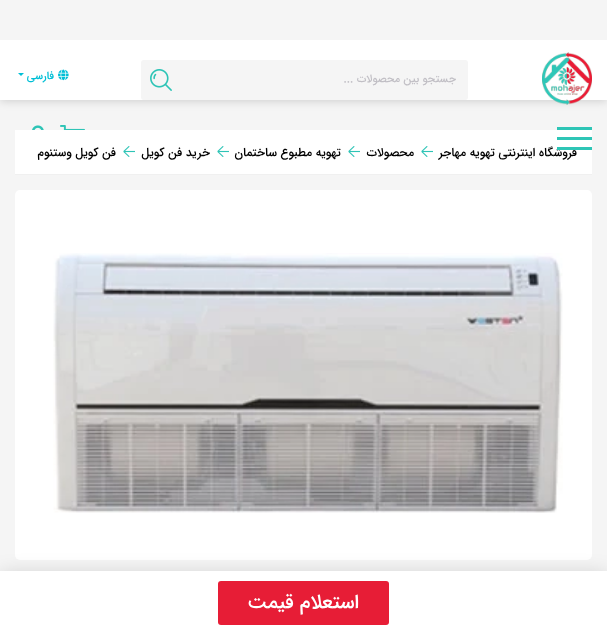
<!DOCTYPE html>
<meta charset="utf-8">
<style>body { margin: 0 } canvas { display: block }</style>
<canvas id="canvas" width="607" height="635"></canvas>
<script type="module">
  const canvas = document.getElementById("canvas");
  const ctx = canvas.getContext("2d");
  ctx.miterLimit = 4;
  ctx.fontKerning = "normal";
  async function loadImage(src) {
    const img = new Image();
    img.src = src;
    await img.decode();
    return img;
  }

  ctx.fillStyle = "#f5f5f5";
  ctx.fillRect(0, 0, 607, 635);
  ctx.fillStyle = "rgba(0, 0, 0, 0.16)";
  ctx.filter = "blur(5px)";
  ctx.beginPath();
  ctx.rect(0, 1, 607, 100);
  ctx.fill();
  ctx.filter = "none";
  ctx.fillStyle = "#ffffff";
  ctx.fillRect(0, 40, 607, 60);
  ctx.fillStyle = "#f5f5f5";
  ctx.fillRect(0, 0, 607, 40);
  ctx.drawImage(await loadImage("img1.png"), 542, 52, 50, 53);
  ctx.beginPath();
  ctx.roundRect(141, 60, 327, 40, 3);
  ctx.fill();
  ctx.direction = "rtl";
  ctx.font = "500 11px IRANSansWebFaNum";
  ctx.fillStyle = "#c1bfc5";
  ctx.fillText("جستجو بین محصولات ...", 456, 82);
  ctx.drawImage(await loadImage("img2.png"), 150, 69, 22, 22);
  ctx.drawImage(await loadImage("img3.png"), 58, 69, 11, 12);
  ctx.fillStyle = "#00bfd6";
  ctx.fillText("فارسی", 54, 79);
  ctx.beginPath();
  ctx.moveTo(18, 73);
  ctx.lineTo(24, 73);
  ctx.lineTo(21, 76);
  ctx.closePath();
  ctx.fill();
  ctx.fillStyle = "#2ec5b6";
  ctx.fillRect(557, 127, 35, 3);
  ctx.fillStyle = "#ffffff";
  ctx.fillRect(15, 130, 577, 44);
  ctx.fillStyle = "#2ec5b6";
  ctx.fillRect(557, 137, 35, 3);
  ctx.font = "500 12px IRANSansWebFaNum";
  ctx.fillStyle = "#000000";
  ctx.fillText("فروشگاه اینترنتی تهویه مهاجر", 577, 156);
  ctx.fillStyle = "#2ec5b6";
  ctx.fillRect(557, 147, 35, 3);
  ctx.drawImage(await loadImage("img4.png"), 60, 125, 25, 5);
  ctx.drawImage(await loadImage("img5.png"), 32, 125, 12, 5);
  ctx.fillStyle = "#f0f0f0";
  ctx.fillRect(15, 174, 577, 1);
  ctx.drawImage(await loadImage("img6.png"), 421, 146, 12, 11);
  ctx.fillStyle = "#000000";
  ctx.fillText("محصولات", 414, 156);
  ctx.drawImage(await loadImage("img6.png"), 348, 146, 12, 11);
  ctx.fillText("تهویه مطبوع ساختمان", 341, 156);
  ctx.drawImage(await loadImage("img6.png"), 217, 146, 12, 11);
  ctx.fillText("خرید فن کویل", 210, 156);
  ctx.drawImage(await loadImage("img6.png"), 123, 146, 12, 11);
  ctx.fillText("فن کویل وستنوم", 116, 156);
  ctx.fillStyle = "#ffffff";
  ctx.beginPath();
  ctx.roundRect(15, 190, 577, 370, 5);
  ctx.fill();
  ctx.drawImage(await loadImage("img7.png"), 53, 253, 510, 260);
  ctx.fillStyle = "rgba(0, 0, 0, 0.16)";
  ctx.filter = "blur(10px)";
  ctx.beginPath();
  ctx.rect(0, 574, 607, 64);
  ctx.fill();
  ctx.filter = "none";
  ctx.fillStyle = "#ffffff";
  ctx.fillRect(0, 571, 607, 64);
  ctx.fillStyle = "#e71d36";
  ctx.beginPath();
  ctx.roundRect(218, 581, 171, 44, 3);
  ctx.fill();
  ctx.font = "500 20px IRANSansWebFaNum";
  ctx.fillStyle = "#ffffff";
  ctx.fillText("استعلام قیمت", 359, 608);
</script>
